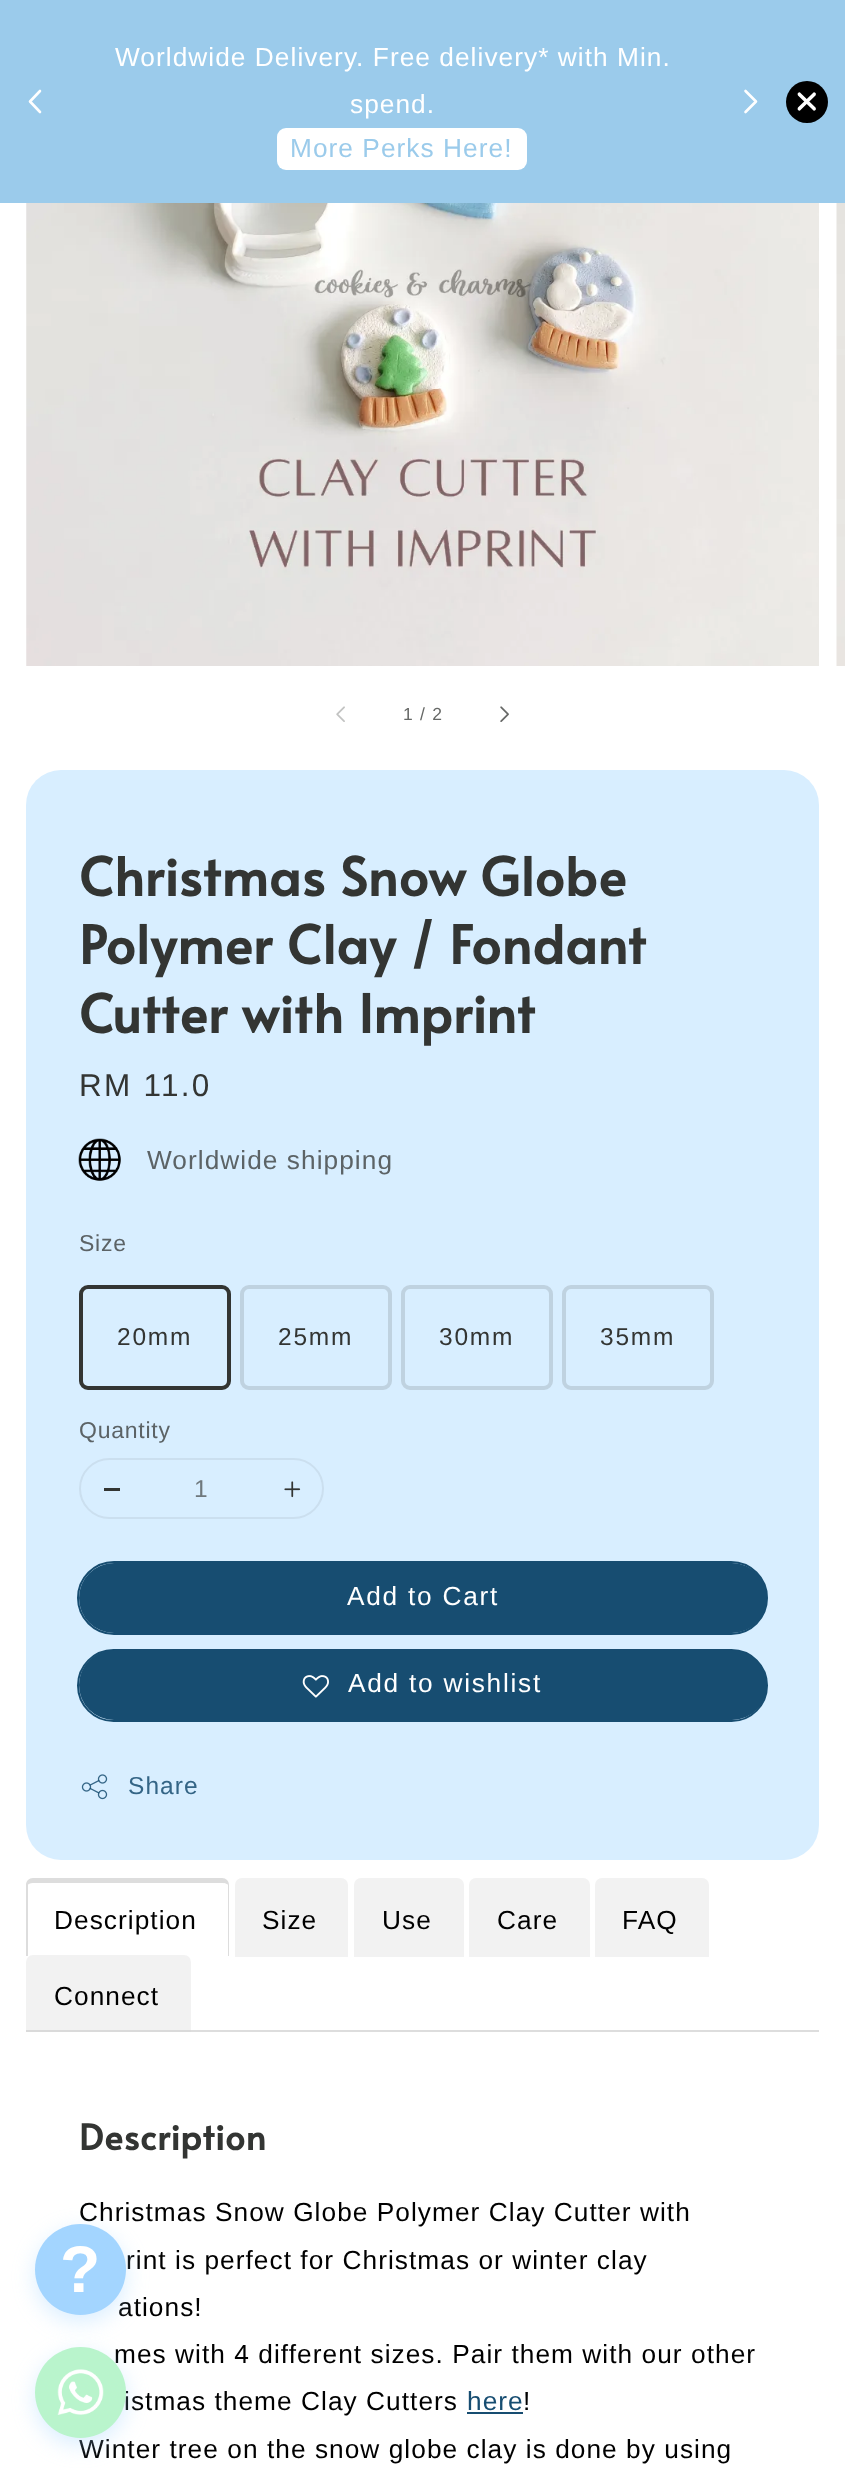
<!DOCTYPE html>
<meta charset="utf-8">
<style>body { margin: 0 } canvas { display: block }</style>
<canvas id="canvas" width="845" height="2472"></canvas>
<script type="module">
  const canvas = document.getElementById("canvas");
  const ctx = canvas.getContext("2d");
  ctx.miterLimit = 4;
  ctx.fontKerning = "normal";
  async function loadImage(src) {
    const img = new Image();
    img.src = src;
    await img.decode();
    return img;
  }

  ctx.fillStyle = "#ffffff";
  ctx.fillRect(0, 0, 845, 2472);
  ctx.fillStyle = "#9bcbeb";
  ctx.fillRect(0, 0, 845, 203);
  ctx.beginPath();
  ctx.moveTo(40, 91);
  ctx.lineTo(30, 101.5);
  ctx.lineTo(40, 112);
  ctx.strokeStyle = "#ffffff";
  ctx.lineWidth = 2.6;
  ctx.lineCap = "round";
  ctx.lineJoin = "round";
  ctx.stroke();
  ctx.letterSpacing = "1.05px";
  ctx.font = "26.25px Liberation Sans";
  ctx.fillStyle = "#ffffff";
  ctx.fillText("Worldwide Delivery. Free delivery* with Min.", 115, 66);
  ctx.fillText("spend.", 350, 113);
  ctx.beginPath();
  ctx.roundRect(277, 128, 250, 42, 9);
  ctx.fill();
  ctx.fillStyle = "#9bcbeb";
  ctx.fillText("More Perks Here!", 290, 157);
  ctx.beginPath();
  ctx.moveTo(745.5, 91);
  ctx.lineTo(756, 101.5);
  ctx.lineTo(745.5, 112);
  ctx.stroke();
  ctx.fillStyle = "#000000";
  ctx.beginPath();
  ctx.arc(807, 102, 21, 0, Math.PI * 2);
  ctx.fill();
  ctx.fillStyle = "#ffffff";
  ctx.beginPath();
  ctx.moveTo(815.5, 93);
  ctx.bezierCurveTo(816, 93.5, 816, 94.5, 815.5, 95.5);
  ctx.lineTo(800.5, 110);
  ctx.bezierCurveTo(800, 111, 799, 111, 798, 110);
  ctx.bezierCurveTo(797.5, 109.5, 797.5, 108.5, 798, 107.5);
  ctx.lineTo(813, 93);
  ctx.bezierCurveTo(813.5, 92, 814.5, 92, 815.5, 93);
  ctx.closePath();
  ctx.fill();
  ctx.beginPath();
  ctx.moveTo(798, 93);
  ctx.bezierCurveTo(799, 92, 800, 92, 800.5, 93);
  ctx.lineTo(815.5, 107.5);
  ctx.bezierCurveTo(816, 108.5, 816, 109.5, 815.5, 110);
  ctx.bezierCurveTo(814.5, 111, 813.5, 111, 813, 110);
  ctx.lineTo(798, 95.5);
  ctx.bezierCurveTo(797.5, 94.5, 797.5, 93.5, 798, 93);
  ctx.closePath();
  ctx.fill();
  ctx.drawImage(await loadImage("img1.png"), 26, 203, 793, 463);
  ctx.drawImage(await loadImage("img2.png"), 836, 203, 9, 463);
  ctx.drawImage(await loadImage("img3.png"), 336, 706, 9, 16);
  ctx.letterSpacing = "1.25px";
  ctx.font = "17.5px Liberation Sans";
  ctx.fillStyle = "#666866";
  ctx.fillText("1 / 2", 403, 720);
  ctx.drawImage(await loadImage("img4.png"), 500, 706, 9, 16);
  ctx.fillStyle = "#d8eeff";
  ctx.beginPath();
  ctx.roundRect(26, 770, 793, 1090, 35);
  ctx.fill();
  ctx.letterSpacing = "1.05px";
  ctx.font = "bold 52.5px Alata";
  ctx.fillStyle = "#333533";
  ctx.fillText("Christmas Snow Globe", 79, 896);
  ctx.fillText("Polymer Clay / Fondant", 79, 964);
  ctx.fillText("Cutter with Imprint", 79, 1033);
  ctx.letterSpacing = "2.25px";
  ctx.font = "31.5px Liberation Sans";
  ctx.fillText("RM 11.0", 79, 1096);
  ctx.drawImage(await loadImage("img5.png"), 78, 1138, 43, 43);
  ctx.letterSpacing = "1.05px";
  ctx.font = "26.25px Liberation Sans";
  ctx.fillStyle = "#5c6366";
  ctx.fillText("Worldwide shipping", 147, 1169);
  ctx.letterSpacing = "0.75px";
  ctx.font = "23px Liberation Sans";
  ctx.fillText("Size", 79, 1251);
  ctx.beginPath();
  ctx.roundRect(81, 1287, 148, 101, 7);
  ctx.strokeStyle = "#333533";
  ctx.lineWidth = 4;
  ctx.lineJoin = "miter";
  ctx.stroke();
  ctx.letterSpacing = "1.75px";
  ctx.font = "24.5px Liberation Sans";
  ctx.fillStyle = "#333533";
  ctx.fillText("20mm", 117, 1345);
  ctx.beginPath();
  ctx.roundRect(242, 1287, 148, 101, 7);
  ctx.strokeStyle = "#bfd2e0";
  ctx.stroke();
  ctx.fillText("25mm", 278, 1345);
  ctx.beginPath();
  ctx.roundRect(403, 1287, 148, 101, 7);
  ctx.stroke();
  ctx.fillText("30mm", 439, 1345);
  ctx.beginPath();
  ctx.roundRect(564, 1287, 148, 101, 7);
  ctx.stroke();
  ctx.fillText("35mm", 600, 1345);
  ctx.letterSpacing = "0.75px";
  ctx.font = "23px Liberation Sans";
  ctx.fillStyle = "#5c6366";
  ctx.fillText("Quantity", 79, 1438);
  ctx.beginPath();
  ctx.roundRect(80, 1459, 243, 59, 29.5);
  ctx.strokeStyle = "#cbdfef";
  ctx.lineWidth = 2;
  ctx.stroke();
  ctx.fillStyle = "#333533";
  ctx.fillRect(104, 1488, 16, 3);
  ctx.letterSpacing = "0px";
  ctx.font = "24.5px Liberation Sans";
  ctx.fillStyle = "#6f787d";
  ctx.fillText("1", 194, 1497);
  ctx.drawImage(await loadImage("img6.png"), 284, 1481, 17, 17);
  ctx.beginPath();
  ctx.roundRect(78, 1562, 689, 72, 36);
  ctx.strokeStyle = "#174d71";
  ctx.stroke();
  ctx.fillStyle = "#174d71";
  ctx.beginPath();
  ctx.roundRect(79, 1563, 688, 70, 35);
  ctx.fill();
  ctx.letterSpacing = "1.75px";
  ctx.font = "26.25px Liberation Sans";
  ctx.fillStyle = "#ffffff";
  ctx.fillText("Add to Cart", 347, 1605);
  ctx.beginPath();
  ctx.roundRect(78, 1650, 689, 71, 35.5);
  ctx.stroke();
  ctx.fillStyle = "#174d71";
  ctx.beginPath();
  ctx.roundRect(79, 1650, 688, 70, 35);
  ctx.fill();
  ctx.drawImage(await loadImage("img7.png"), 302, 1675, 27, 23);
  ctx.fillStyle = "#ffffff";
  ctx.fillText("Add to wishlist", 348, 1692);
  ctx.drawImage(await loadImage("img8.png"), 81, 1774, 27, 26);
  ctx.letterSpacing = "1.05px";
  ctx.font = "24.5px Liberation Sans";
  ctx.fillStyle = "#346586";
  ctx.fillText("Share", 128, 1794);
  ctx.fillStyle = "#dddddd";
  ctx.fillRect(26, 2030, 793, 2);
  ctx.beginPath();
  ctx.moveTo(33, 1878);
  ctx.lineTo(222, 1878);
  ctx.bezierCurveTo(226, 1878, 229, 1881, 229, 1885);
  ctx.lineTo(229, 1956);
  ctx.lineTo(26, 1956);
  ctx.lineTo(26, 1885);
  ctx.bezierCurveTo(26, 1881, 29, 1878, 33, 1878);
  ctx.closePath();
  ctx.moveTo(33, 1883);
  ctx.lineTo(222, 1883);
  ctx.bezierCurveTo(225, 1883, 228, 1884, 228, 1885);
  ctx.lineTo(228, 1956);
  ctx.lineTo(28, 1956);
  ctx.lineTo(28, 1885);
  ctx.bezierCurveTo(28, 1884, 30, 1883, 33, 1883);
  ctx.closePath();
  ctx.fill("evenodd");
  ctx.font = "26.25px Liberation Sans";
  ctx.fillStyle = "#000000";
  ctx.fillText("Description", 54, 1929);
  ctx.fillStyle = "#f2f2f2";
  ctx.beginPath();
  ctx.roundRect(235, 1878, 113, 79, [7, 7, 0, 0]);
  ctx.fill();
  ctx.fillStyle = "#000000";
  ctx.fillText("Size", 262, 1929);
  ctx.fillStyle = "#f2f2f2";
  ctx.beginPath();
  ctx.roundRect(354, 1878, 110, 79, [7, 7, 0, 0]);
  ctx.fill();
  ctx.fillStyle = "#000000";
  ctx.fillText("Use", 382, 1929);
  ctx.fillStyle = "#f2f2f2";
  ctx.beginPath();
  ctx.roundRect(469, 1878, 121, 79, [7, 7, 0, 0]);
  ctx.fill();
  ctx.fillStyle = "#000000";
  ctx.fillText("Care", 497, 1929);
  ctx.fillStyle = "#f2f2f2";
  ctx.beginPath();
  ctx.roundRect(595, 1878, 114, 79, [7, 7, 0, 0]);
  ctx.fill();
  ctx.fillStyle = "#000000";
  ctx.fillText("FAQ", 622, 1929);
  ctx.fillStyle = "rgba(212, 212, 212, 0.3)";
  ctx.beginPath();
  ctx.roundRect(26, 1955, 165, 77, [7, 7, 0, 0]);
  ctx.fill();
  ctx.fillStyle = "#000000";
  ctx.fillText("Connect", 54, 2005);
  ctx.font = "bold 35px Alata";
  ctx.fillStyle = "#333533";
  ctx.fillText("Description", 79, 2150);
  ctx.font = "26.25px Liberation Sans";
  ctx.fillStyle = "#000000";
  ctx.fillText("Christmas Snow Globe Polymer Clay Cutter with", 79, 2221);
  ctx.fillText("rint is perfect for Christmas or winter clay", 126, 2269);
  ctx.fillText("ations!", 118, 2316);
  ctx.fillText("mes with 4 different sizes. Pair them with our other", 114, 2363);
  ctx.fillText("istmas theme Clay Cutters", 124, 2410);
  ctx.fillStyle = "#174d71";
  ctx.fillText("here", 467, 2410);
  ctx.fillRect(467, 2412, 56, 2);
  ctx.fillStyle = "#000000";
  ctx.fillText("!", 523, 2410);
  ctx.fillText("Winter tree on the snow globe clay is done by using", 79, 2458);
  ctx.fillStyle = "rgba(163, 213, 255, 0.4)";
  ctx.filter = "blur(10.5px)";
  ctx.beginPath();
  ctx.roundRect(35, 2354, 91, 91, 45.5);
  ctx.fill();
  ctx.filter = "none";
  ctx.fillStyle = "#b9f4cc";
  ctx.beginPath();
  ctx.arc(80.5, 2392.5, 45.5, 0, Math.PI * 2);
  ctx.fill();
  ctx.fillStyle = "rgba(163, 213, 255, 0.4)";
  ctx.filter = "blur(10.5px)";
  ctx.beginPath();
  ctx.roundRect(35, 2231, 91, 91, 45.5);
  ctx.fill();
  ctx.filter = "none";
  ctx.fillStyle = "#a3d5ff";
  ctx.beginPath();
  ctx.arc(80.5, 2269.5, 45.5, 0, Math.PI * 2);
  ctx.fill();
  ctx.letterSpacing = "0px";
  ctx.font = "bold 66px Liberation Sans";
  ctx.fillStyle = "#ffffff";
  ctx.fillText("?", 60, 2292);
  ctx.drawImage(await loadImage("img9.png"), 57, 2369, 47, 46);
</script>
